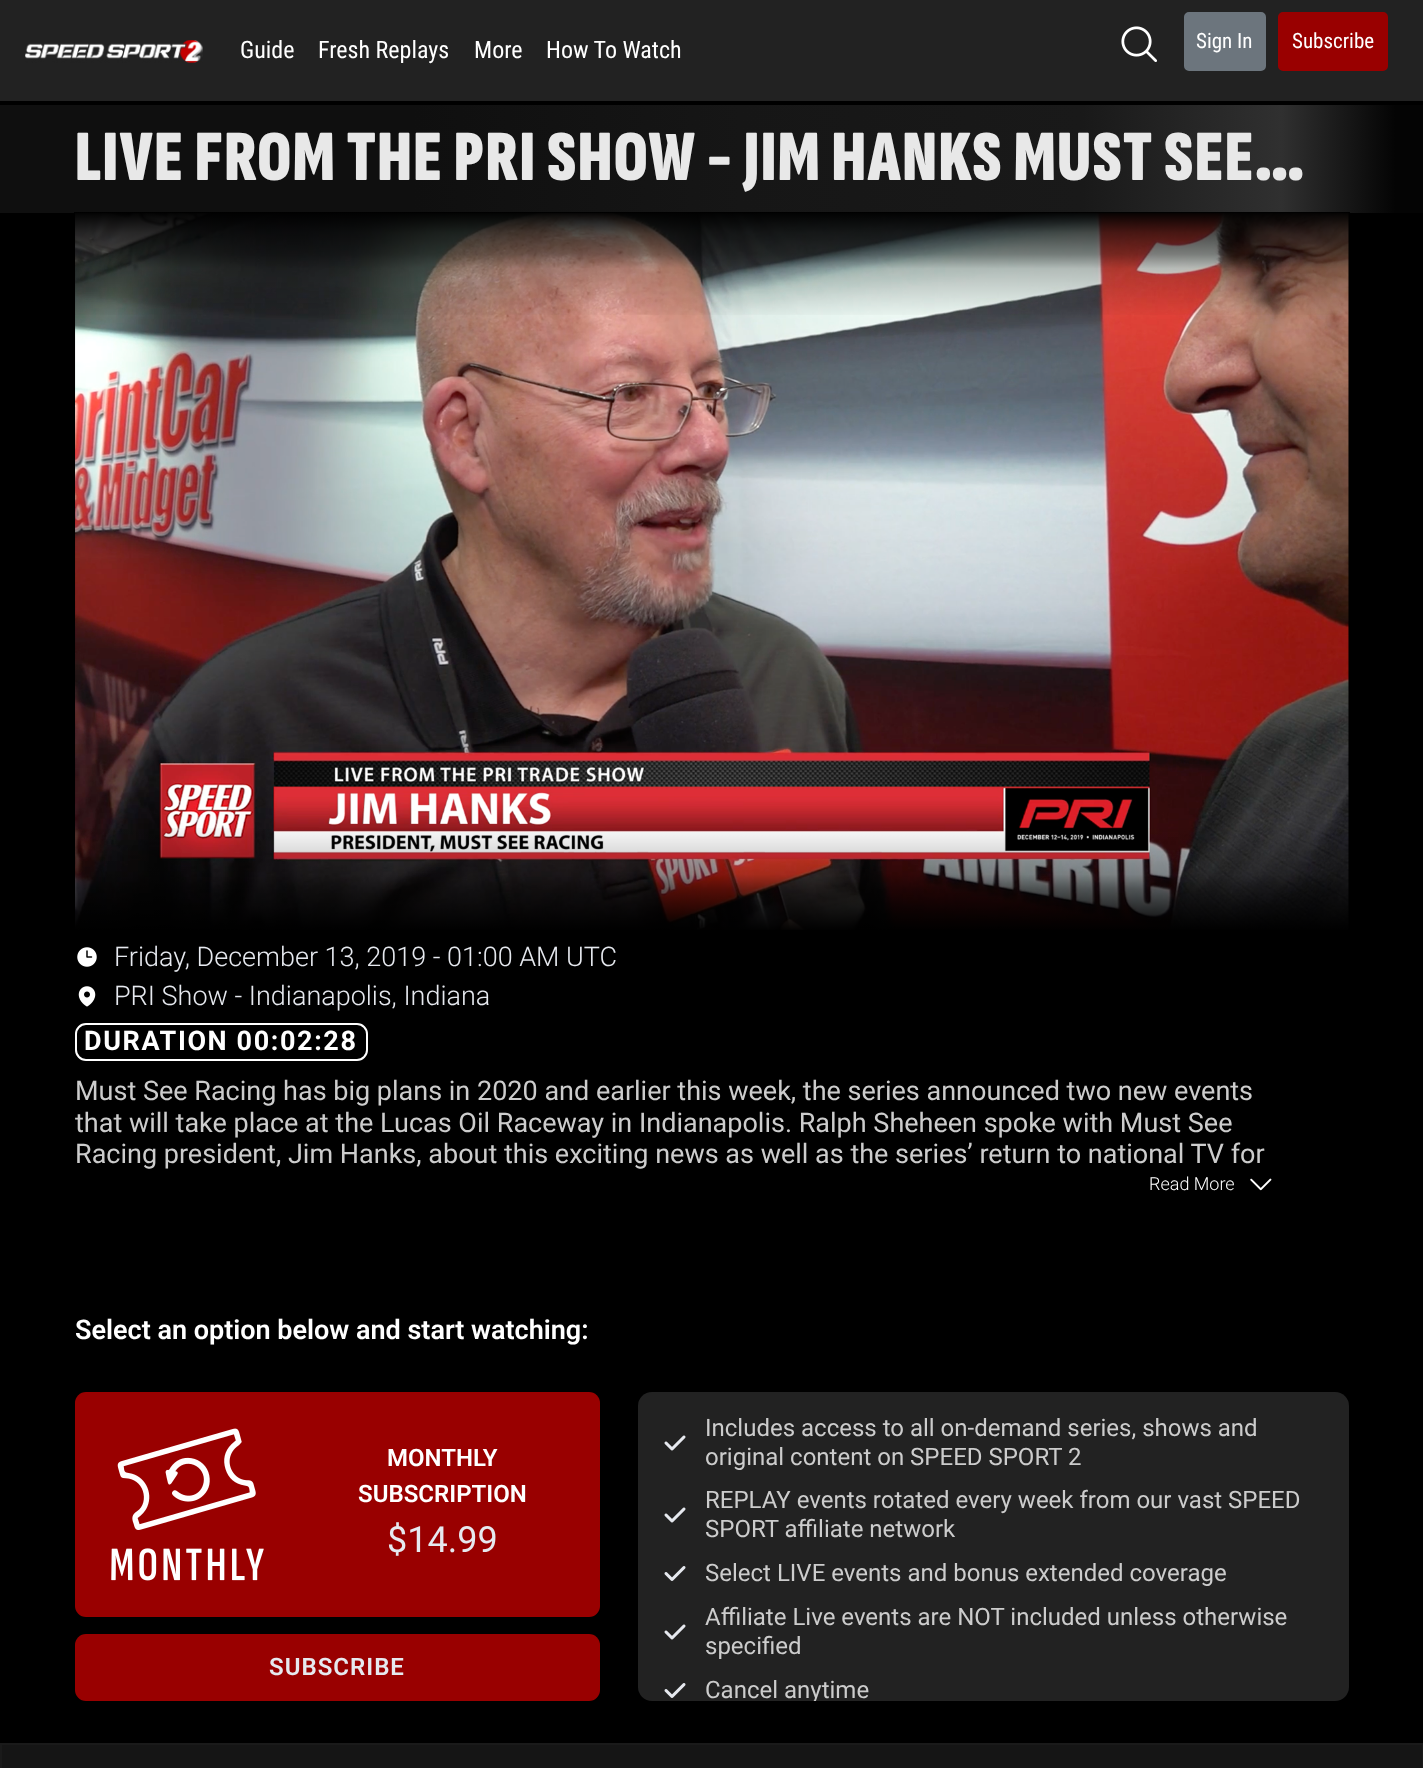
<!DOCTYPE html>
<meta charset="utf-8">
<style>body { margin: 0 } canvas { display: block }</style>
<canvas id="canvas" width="1423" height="1768"></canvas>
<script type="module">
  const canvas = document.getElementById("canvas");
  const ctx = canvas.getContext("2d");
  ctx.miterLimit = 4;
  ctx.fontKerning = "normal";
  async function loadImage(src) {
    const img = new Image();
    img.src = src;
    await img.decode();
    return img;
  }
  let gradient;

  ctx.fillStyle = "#000000";
  ctx.fillRect(0, 0, 1423, 1768);
  ctx.fillStyle = "#222222";
  ctx.fillRect(0, 0, 1423, 101);
  ctx.drawImage(await loadImage("img1.png"), 25, 40, 178, 23);
  ctx.font = "24px Roboto Condensed";
  ctx.fillStyle = "#ffffff";
  ctx.fillText("Guide", 240, 58);
  ctx.fillText("Fresh Replays", 318, 58);
  ctx.fillText("More", 474, 58);
  ctx.fillText("How To Watch", 546, 58);
  ctx.drawImage(await loadImage("img2.png"), 1121, 26, 36, 36);
  ctx.fillStyle = "#6c757d";
  ctx.beginPath();
  ctx.roundRect(1185, 13, 80, 57, 4);
  ctx.fill();
  ctx.strokeStyle = "#6c757d";
  ctx.lineWidth = 2;
  ctx.stroke();
  ctx.font = "21px Roboto Condensed";
  ctx.fillStyle = "#ffffff";
  ctx.fillText("Sign In", 1196, 48);
  ctx.fillStyle = "#990000";
  ctx.beginPath();
  ctx.roundRect(1279, 13, 108, 57, 4);
  ctx.fill();
  ctx.strokeStyle = "#990000";
  ctx.stroke();
  ctx.fillStyle = "#ffffff";
  ctx.fillText("Subscribe", 1292, 48);
  gradient = ctx.createLinearGradient(0, 159, 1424, 159);
  gradient.addColorStop(0.29, "#0f0f0f");
  gradient.addColorStop(0.52, "#161616");
  gradient.addColorStop(0.76, "#191919");
  gradient.addColorStop(0.9, "#303030");
  gradient.addColorStop(0.98, "#040404");
  ctx.fillStyle = gradient;
  ctx.fillRect(0, 105, 1423, 108);
  ctx.letterSpacing = "1.45px";
  ctx.font = "900 72px Sofia Sans Extra Condensed";
  ctx.fillStyle = "#e8e8e8";
  ctx.fillText("LIVE FROM THE PRI SHOW - JIM HANKS MUST SEE…", 75, 180);
  ctx.drawImage(await loadImage("img3.png"), 75, 213, 1274, 717);
  gradient = ctx.createLinearGradient(712, 932, 712, 212);
  gradient.addColorStop(0, "#000000");
  gradient.addColorStop(0.03, "rgba(0, 0, 0, 0.75)");
  gradient.addColorStop(0.06, "rgba(0, 0, 0, 0.5)");
  gradient.addColorStop(0.08, "rgba(0, 0, 0, 0.25)");
  gradient.addColorStop(0.15, "rgba(0, 0, 0, 0)");
  gradient.addColorStop(1, "rgba(0, 0, 0, 0)");
  ctx.fillStyle = gradient;
  ctx.fillRect(75, 828, 1274, 102);
  gradient = ctx.createLinearGradient(712, 211, 712, 932);
  gradient.addColorStop(0, "#000000");
  gradient.addColorStop(0.03, "rgba(0, 0, 0, 0.7)");
  gradient.addColorStop(0.06, "rgba(0, 0, 0, 0.5)");
  gradient.addColorStop(0.08, "rgba(0, 0, 0, 0.25)");
  gradient.addColorStop(0.15, "rgba(0, 0, 0, 0)");
  gradient.addColorStop(1, "rgba(0, 0, 0, 0)");
  ctx.fillStyle = gradient;
  ctx.fillRect(74, 212, 1276, 103);
  ctx.drawImage(await loadImage("img4.png"), 77, 947, 20, 20);
  ctx.letterSpacing = "0px";
  ctx.font = "300 27px Roboto";
  ctx.fillStyle = "#e6e9ef";
  ctx.fillText("Friday, December 13, 2019 - 01:00 AM UTC", 114, 966);
  ctx.drawImage(await loadImage("img5.png"), 78, 986, 18, 21);
  ctx.fillText("PRI Show - Indianapolis, Indiana", 114, 1005);
  ctx.beginPath();
  ctx.roundRect(76, 1024, 291, 36, 10);
  ctx.strokeStyle = "#ffffff";
  ctx.stroke();
  ctx.letterSpacing = "1.6px";
  ctx.font = "bold 27px Roboto";
  ctx.fillStyle = "#ffffff";
  ctx.fillText("DURATION 00:02:28", 84, 1050);
  ctx.letterSpacing = "0px";
  ctx.font = "27px Roboto";
  ctx.fillStyle = "#cccccc";
  ctx.fillText("Must See Racing has big plans in 2020 and earlier this week, the series announced two new events", 75, 1100);
  ctx.fillText("that will take place at the Lucas Oil Raceway in Indianapolis. Ralph Sheheen spoke with Must See", 75, 1132);
  ctx.fillText("Racing president, Jim Hanks, about this exciting news as well as the series’ return to national TV for", 75, 1163);
  ctx.font = "300 18px Roboto";
  ctx.fillStyle = "#ffffff";
  ctx.fillText("Read More", 1149, 1190);
  ctx.drawImage(await loadImage("img6.png"), 1250, 1178, 22, 13);
  ctx.font = "600 27px Roboto";
  ctx.fillText("Select an option below and start watching:", 75, 1339);
  ctx.fillStyle = "#990000";
  ctx.beginPath();
  ctx.roundRect(75, 1392, 525, 225, 11);
  ctx.fill();
  ctx.drawImage(await loadImage("img7.png"), 111, 1428, 153, 153);
  ctx.font = "600 24px Roboto";
  ctx.fillStyle = "#ffffff";
  ctx.fillText("MONTHLY", 387, 1466);
  ctx.fillText("SUBSCRIPTION", 358, 1502);
  ctx.font = "36px Roboto";
  ctx.fillStyle = "#e6e9ef";
  ctx.fillText("$14.99", 387, 1552);
  ctx.fillStyle = "#990000";
  ctx.beginPath();
  ctx.roundRect(75, 1634, 525, 67, 11);
  ctx.fill();
  ctx.letterSpacing = "1px";
  ctx.font = "600 24px Roboto";
  ctx.fillStyle = "#e6e9ef";
  ctx.fillText("SUBSCRIBE", 269, 1675);
  ctx.fillStyle = "#222222";
  ctx.beginPath();
  ctx.roundRect(638, 1392, 711, 309, 14);
  ctx.fill();
  ctx.drawImage(await loadImage("img8.png"), 664, 1435, 22, 16);
  ctx.letterSpacing = "0px";
  ctx.font = "24px Roboto";
  ctx.fillStyle = "#cccccc";
  ctx.fillText("Includes access to all on-demand series, shows and", 705, 1436);
  ctx.fillText("original content on SPEED SPORT 2", 705, 1465);
  ctx.drawImage(await loadImage("img8.png"), 664, 1507, 22, 16);
  ctx.fillText("REPLAY events rotated every week from our vast SPEED", 705, 1508);
  ctx.fillText("SPORT affiliate network", 705, 1537);
  ctx.drawImage(await loadImage("img9.png"), 664, 1566, 22, 15);
  ctx.fillText("Select LIVE events and bonus extended coverage", 705, 1581);
  ctx.drawImage(await loadImage("img8.png"), 664, 1624, 22, 16);
  ctx.fillText("Affiliate Live events are NOT included unless otherwise", 705, 1625);
  ctx.fillText("specified", 705, 1654);
  ctx.drawImage(await loadImage("img9.png"), 664, 1683, 22, 15);
  ctx.save();
  ctx.beginPath();
  ctx.roundRect(638, 1392, 711, 309, 14);
  ctx.clip();
  ctx.fillText("Cancel anytime", 705, 1698);
  ctx.restore();
  ctx.fillStyle = "#151515";
  ctx.beginPath();
  ctx.rect(1, 1744, 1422, 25);
  ctx.fill();
  ctx.strokeStyle = "#1a1a1a";
  ctx.stroke();
</script>
